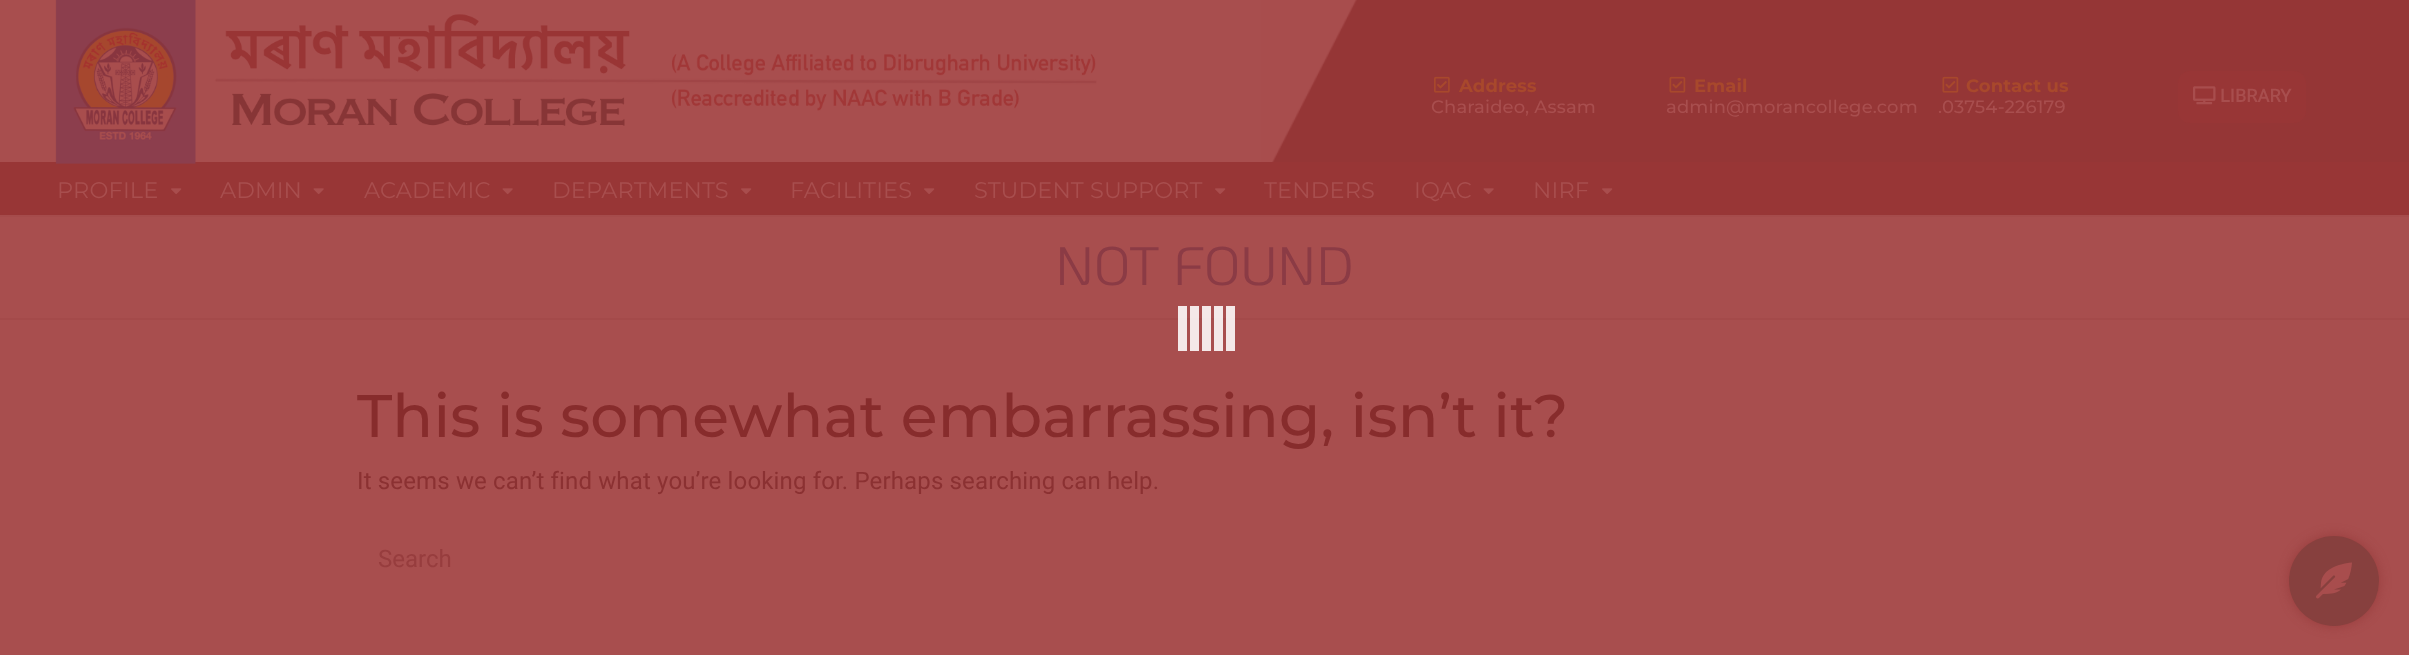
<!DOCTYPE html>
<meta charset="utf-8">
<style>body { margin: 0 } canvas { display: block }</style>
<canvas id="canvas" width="2409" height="655"></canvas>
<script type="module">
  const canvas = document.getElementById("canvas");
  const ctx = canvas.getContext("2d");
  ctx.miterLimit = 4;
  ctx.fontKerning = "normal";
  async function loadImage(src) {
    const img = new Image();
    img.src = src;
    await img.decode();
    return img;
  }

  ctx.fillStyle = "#a84e4e";
  ctx.fillRect(0, 0, 2409, 655);
  ctx.fillStyle = "#f4e8e8";
  ctx.fillRect(1226, 306, 9, 45);
  ctx.fillRect(1214, 306, 9, 45);
  ctx.fillRect(1202, 306, 9, 45);
  ctx.fillRect(1190, 306, 9, 45);
  ctx.fillRect(1178, 306, 9, 45);
  ctx.fillStyle = "#a54b4b";
  ctx.fillRect(0, 215, 2409, 2);
  ctx.drawImage(await loadImage("img1.png"), 1261, 0, 1148, 162);
  ctx.fillStyle = "#983636";
  ctx.fillRect(0, 162, 2409, 53);
  ctx.drawImage(await loadImage("img2.png"), 55, 0, 1042, 164);
  ctx.drawImage(await loadImage("img3.png"), 1434, 76, 16, 17);
  ctx.letterSpacing = "0.15px";
  ctx.font = "bold 18px Montserrat";
  ctx.fillStyle = "#a8482c";
  ctx.fillText("Address", 1459, 92);
  ctx.font = "500 18px Montserrat";
  ctx.fillStyle = "#a84e4e";
  ctx.fillText("Charaideo, Assam", 1431, 113);
  ctx.drawImage(await loadImage("img4.png"), 1669, 76, 17, 17);
  ctx.font = "bold 18px Montserrat";
  ctx.fillStyle = "#a8482c";
  ctx.fillText("Email", 1694, 92);
  ctx.font = "500 18px Montserrat";
  ctx.fillStyle = "#a84e4e";
  ctx.fillText("admin@morancollege.com", 1666, 113);
  ctx.drawImage(await loadImage("img4.png"), 1942, 76, 17, 17);
  ctx.font = "bold 18px Montserrat";
  ctx.fillStyle = "#a8482c";
  ctx.fillText("Contact us", 1966, 92);
  ctx.font = "500 18px Montserrat";
  ctx.fillStyle = "#a84e4e";
  ctx.fillText(".03754-226179", 1938, 113);
  ctx.fillStyle = "#983636";
  ctx.beginPath();
  ctx.roundRect(2178, 71, 128, 52, 12);
  ctx.fill();
  ctx.drawImage(await loadImage("img5.png"), 2193, 86, 23, 19);
  ctx.font = "bold 18px Roboto";
  ctx.fillStyle = "#a84e4e";
  ctx.fillText("LIBRARY", 2220, 102);
  ctx.font = "22.5px Montserrat";
  ctx.fillText("PROFILE", 57, 198);
  ctx.drawImage(await loadImage("img6.png"), 171, 188, 11, 7);
  ctx.fillText("ADMIN", 220, 198);
  ctx.drawImage(await loadImage("img7.png"), 313, 188, 11, 7);
  ctx.fillText("ACADEMIC", 364, 198);
  ctx.drawImage(await loadImage("img7.png"), 502, 188, 11, 7);
  ctx.fillText("DEPARTMENTS", 552, 198);
  ctx.drawImage(await loadImage("img6.png"), 741, 188, 11, 7);
  ctx.fillText("FACILITIES", 790, 198);
  ctx.drawImage(await loadImage("img6.png"), 924, 188, 11, 7);
  ctx.fillText("STUDENT SUPPORT", 974, 198);
  ctx.drawImage(await loadImage("img6.png"), 1215, 188, 11, 7);
  ctx.fillText("TENDERS", 1264, 198);
  ctx.fillText("IQAC", 1414, 198);
  ctx.drawImage(await loadImage("img7.png"), 1483, 188, 11, 7);
  ctx.fillText("NIRF", 1533, 198);
  ctx.drawImage(await loadImage("img6.png"), 1602, 188, 11, 7);
  ctx.fillStyle = "#a44a4a";
  ctx.fillRect(0, 318, 2409, 2);
  ctx.fillStyle = "#f3e7e7";
  ctx.fillRect(1226, 318, 9, 2);
  ctx.fillRect(1214, 318, 9, 2);
  ctx.fillRect(1202, 318, 9, 2);
  ctx.fillRect(1190, 318, 9, 2);
  ctx.fillRect(1178, 318, 9, 2);
  ctx.font = "54px KoHo";
  ctx.fillStyle = "#8b3b45";
  ctx.fillText("NOT FOUND", 1055, 285);
  ctx.font = "500 60px Montserrat";
  ctx.fillStyle = "#872c2c";
  ctx.fillText("This is somewhat embarrassing, isn’t it?", 357, 437);
  ctx.font = "24px Roboto";
  ctx.fillStyle = "#8b3132";
  ctx.fillText("It seems we can’t find what you’re looking for. Perhaps searching can help.", 357, 489);
  ctx.letterSpacing = "0px";
  ctx.fillStyle = "#973d3e";
  ctx.fillText("Search", 378, 567);
  ctx.fillStyle = "rgba(135, 44, 44, 0.5)";
  ctx.filter = "blur(6px)";
  ctx.beginPath();
  ctx.roundRect(2289, 536, 90, 90, 45);
  ctx.fill();
  ctx.filter = "none";
  ctx.fillStyle = "#87403e";
  ctx.beginPath();
  ctx.arc(2334, 581, 45, 0, Math.PI * 2);
  ctx.fill();
  ctx.drawImage(await loadImage("img8.png"), 2316, 562, 36, 37);
</script>
